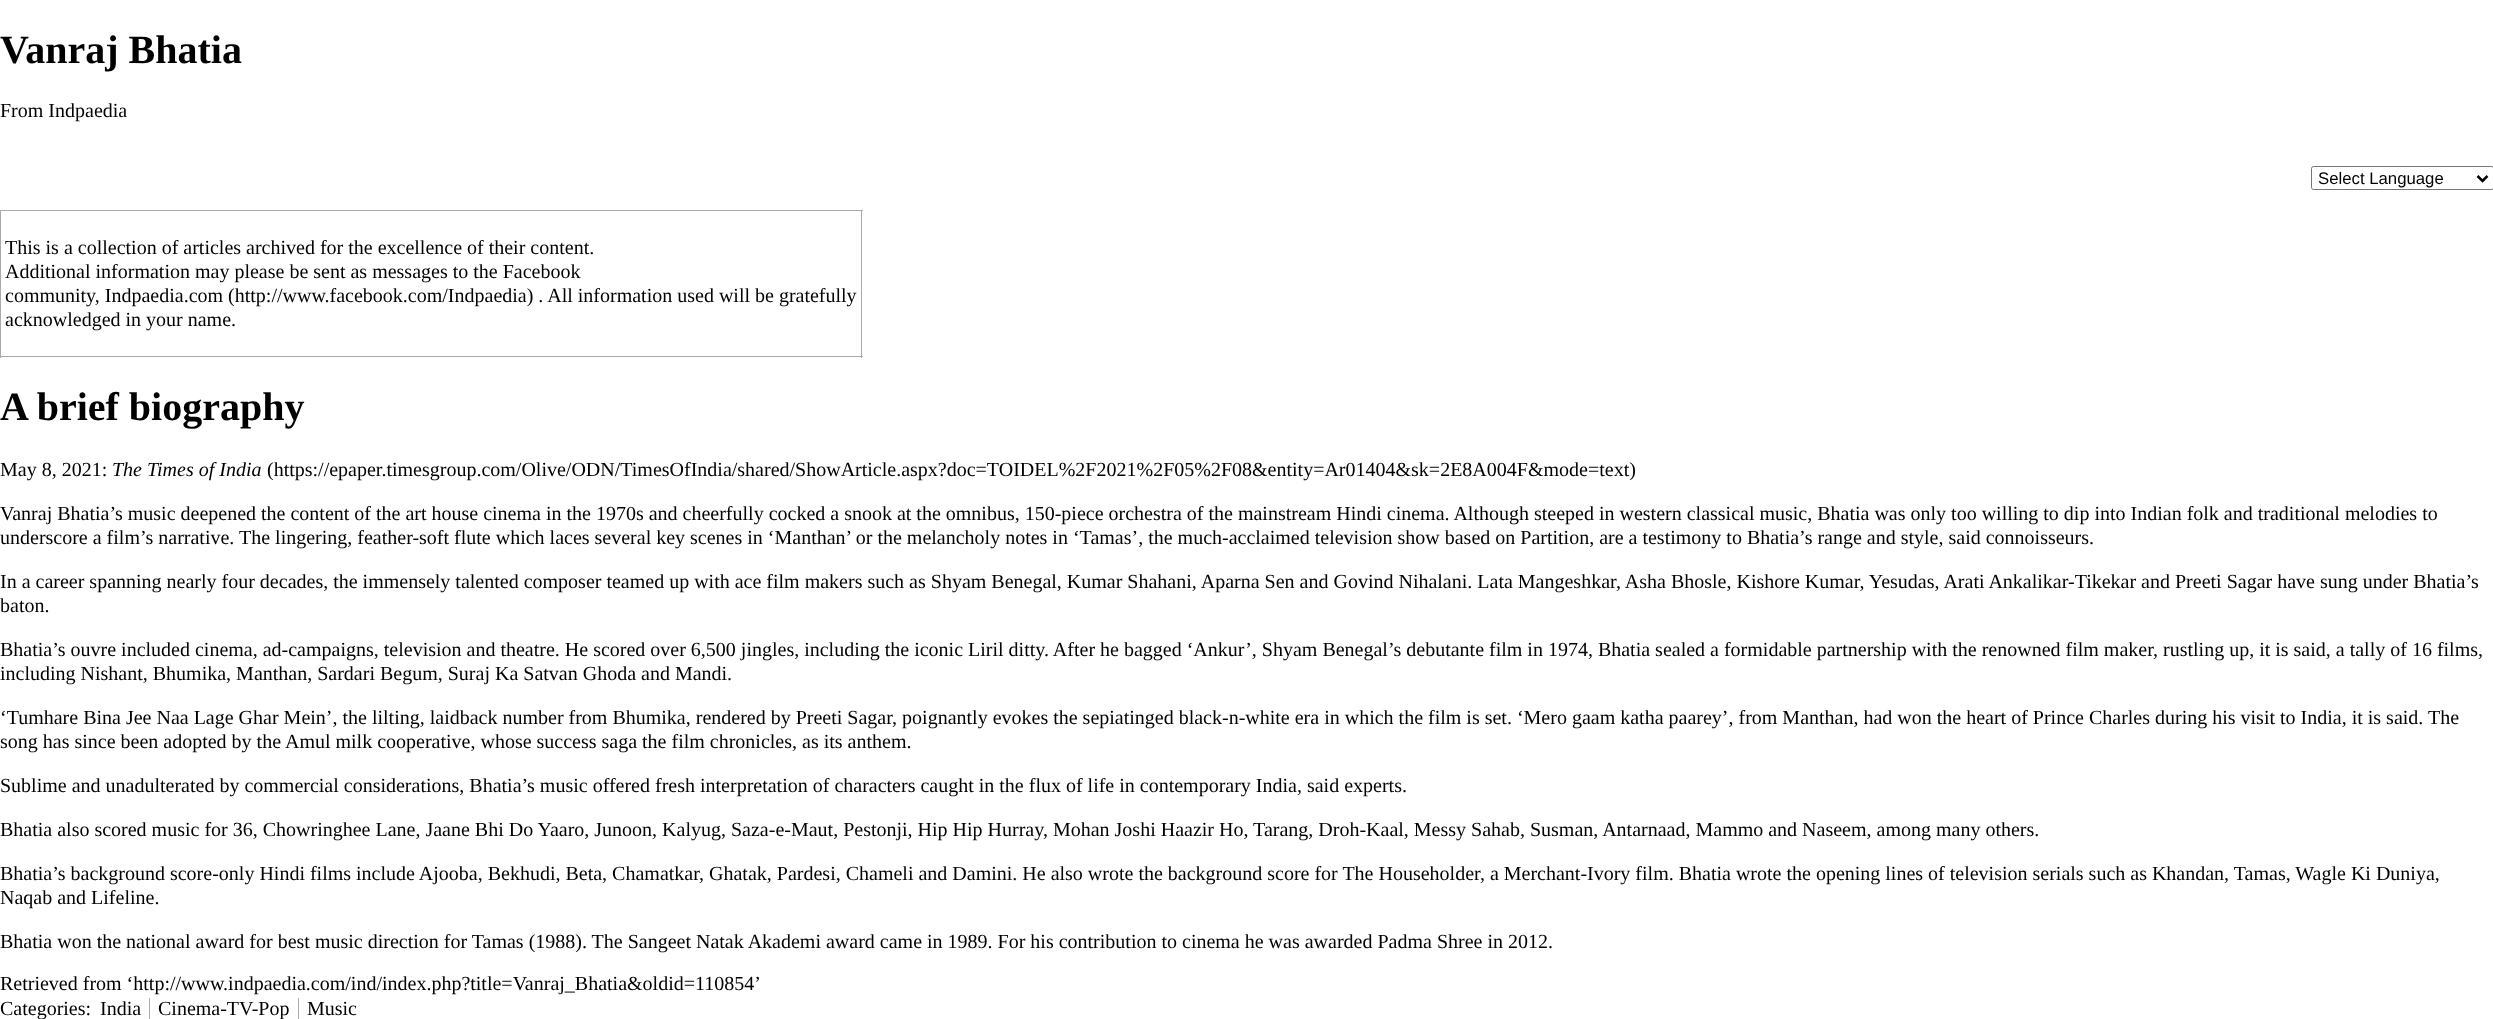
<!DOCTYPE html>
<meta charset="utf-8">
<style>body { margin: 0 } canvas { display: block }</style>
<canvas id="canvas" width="2493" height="1019"></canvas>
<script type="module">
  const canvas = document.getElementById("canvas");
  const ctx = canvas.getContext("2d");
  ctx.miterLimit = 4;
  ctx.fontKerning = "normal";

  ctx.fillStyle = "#ffffff";
  ctx.fillRect(0, 0, 2493, 1019);
  ctx.font = "bold 40px Liberation Serif";
  ctx.fillStyle = "#000000";
  ctx.fillText("Vanraj Bhatia", 0, 63);
  ctx.font = "20px Liberation Serif";
  ctx.fillText("From Indpaedia", 0, 117);
  ctx.beginPath();
  ctx.roundRect(2311.5, 166.5, 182, 23, 2);
  ctx.strokeStyle = "#767676";
  ctx.stroke();
  ctx.beginPath();
  ctx.moveTo(2477.5, 176);
  ctx.lineTo(2482.5, 181);
  ctx.lineTo(2487.5, 176);
  ctx.strokeStyle = "#000000";
  ctx.lineWidth = 2.5;
  ctx.stroke();
  ctx.font = "16.75px Liberation Sans";
  ctx.fillText("Select Language", 2318, 184);
  ctx.fillStyle = "#aaaaaa";
  ctx.fillRect(0, 210, 863, 1);
  ctx.fillRect(861, 210, 1, 148);
  ctx.fillRect(0, 356, 863, 1);
  ctx.fillRect(0, 210, 1, 148);
  ctx.font = "20px Liberation Serif";
  ctx.fillStyle = "#000000";
  ctx.fillText("This is a collection of articles archived for the excellence of their content.", 5, 254);
  ctx.fillText("Additional information may please be sent as messages to the Facebook", 5, 278);
  ctx.fillText("community, Indpaedia.com (http://www.facebook.com/Indpaedia) . All information used will be gratefully", 5, 302);
  ctx.fillText("acknowledged in your name.", 5, 326);
  ctx.font = "bold 40px Liberation Serif";
  ctx.fillText("A brief biography", 0, 420);
  ctx.font = "20px Liberation Serif";
  ctx.fillText("May 8, 2021:", 0, 476);
  ctx.font = "italic 20px Liberation Serif";
  ctx.fillText("The Times of India", 112, 476);
  ctx.font = "20px Liberation Serif";
  ctx.fillText("(https://epaper.timesgroup.com/Olive/ODN/TimesOfIndia/shared/ShowArticle.aspx?doc=TOIDEL%2F2021%2F05%2F08&entity=Ar01404&sk=2E8A004F&mode=text)", 267, 476);
  ctx.fillText("Vanraj Bhatia’s music deepened the content of the art house cinema in the 1970s and cheerfully cocked a snook at the omnibus, 150-piece orchestra of the mainstream Hindi cinema. Although steeped in western classical music, Bhatia was only too willing to dip into Indian folk and traditional melodies to", 0, 520);
  ctx.fillText("underscore a film’s narrative. The lingering, feather-soft flute which laces several key scenes in ‘Manthan’ or the melancholy notes in ‘Tamas’, the much-acclaimed television show based on Partition, are a testimony to Bhatia’s range and style, said connoisseurs.", 0, 544);
  ctx.fillText("In a career spanning nearly four decades, the immensely talented composer teamed up with ace film makers such as Shyam Benegal, Kumar Shahani, Aparna Sen and Govind Nihalani. Lata Mangeshkar, Asha Bhosle, Kishore Kumar, Yesudas, Arati Ankalikar-Tikekar and Preeti Sagar have sung under Bhatia’s", 0, 588);
  ctx.fillText("baton.", 0, 612);
  ctx.fillText("Bhatia’s ouvre included cinema, ad-campaigns, television and theatre. He scored over 6,500 jingles, including the iconic Liril ditty. After he bagged ‘Ankur’, Shyam Benegal’s debutante film in 1974, Bhatia sealed a formidable partnership with the renowned film maker, rustling up, it is said, a tally of 16 films,", 0, 656);
  ctx.fillText("including Nishant, Bhumika, Manthan, Sardari Begum, Suraj Ka Satvan Ghoda and Mandi.", 0, 680);
  ctx.fillText("‘Tumhare Bina Jee Naa Lage Ghar Mein’, the lilting, laidback number from Bhumika, rendered by Preeti Sagar, poignantly evokes the sepiatinged black-n-white era in which the film is set. ‘Mero gaam katha paarey’, from Manthan, had won the heart of Prince Charles during his visit to India, it is said. The", 0, 724);
  ctx.fillText("song has since been adopted by the Amul milk cooperative, whose success saga the film chronicles, as its anthem.", 0, 748);
  ctx.fillText("Sublime and unadulterated by commercial considerations, Bhatia’s music offered fresh interpretation of characters caught in the flux of life in contemporary India, said experts.", 0, 792);
  ctx.fillText("Bhatia also scored music for 36, Chowringhee Lane, Jaane Bhi Do Yaaro, Junoon, Kalyug, Saza-e-Maut, Pestonji, Hip Hip Hurray, Mohan Joshi Haazir Ho, Tarang, Droh-Kaal, Messy Sahab, Susman, Antarnaad, Mammo and Naseem, among many others.", 0, 836);
  ctx.fillText("Bhatia’s background score-only Hindi films include Ajooba, Bekhudi, Beta, Chamatkar, Ghatak, Pardesi, Chameli and Damini. He also wrote the background score for The Householder, a Merchant-Ivory film. Bhatia wrote the opening lines of television serials such as Khandan, Tamas, Wagle Ki Duniya,", 0, 880);
  ctx.fillText("Naqab and Lifeline.", 0, 904);
  ctx.fillText("Bhatia won the national award for best music direction for Tamas (1988). The Sangeet Natak Akademi award came in 1989. For his contribution to cinema he was awarded Padma Shree in 2012.", 0, 948);
  ctx.fillText("Retrieved from ‘http://www.indpaedia.com/ind/index.php?title=Vanraj_Bhatia&oldid=110854’", 0, 990);
  ctx.fillText("Categories:", 0, 1015);
  ctx.fillText("India", 100, 1015);
  ctx.fillStyle = "#aaaaaa";
  ctx.fillRect(149, 998, 1, 21);
  ctx.fillStyle = "#000000";
  ctx.fillText("Cinema-TV-Pop", 158, 1015);
  ctx.fillStyle = "#aaaaaa";
  ctx.fillRect(298, 998, 1, 21);
  ctx.fillStyle = "#000000";
  ctx.fillText("Music", 307, 1015);
</script>
